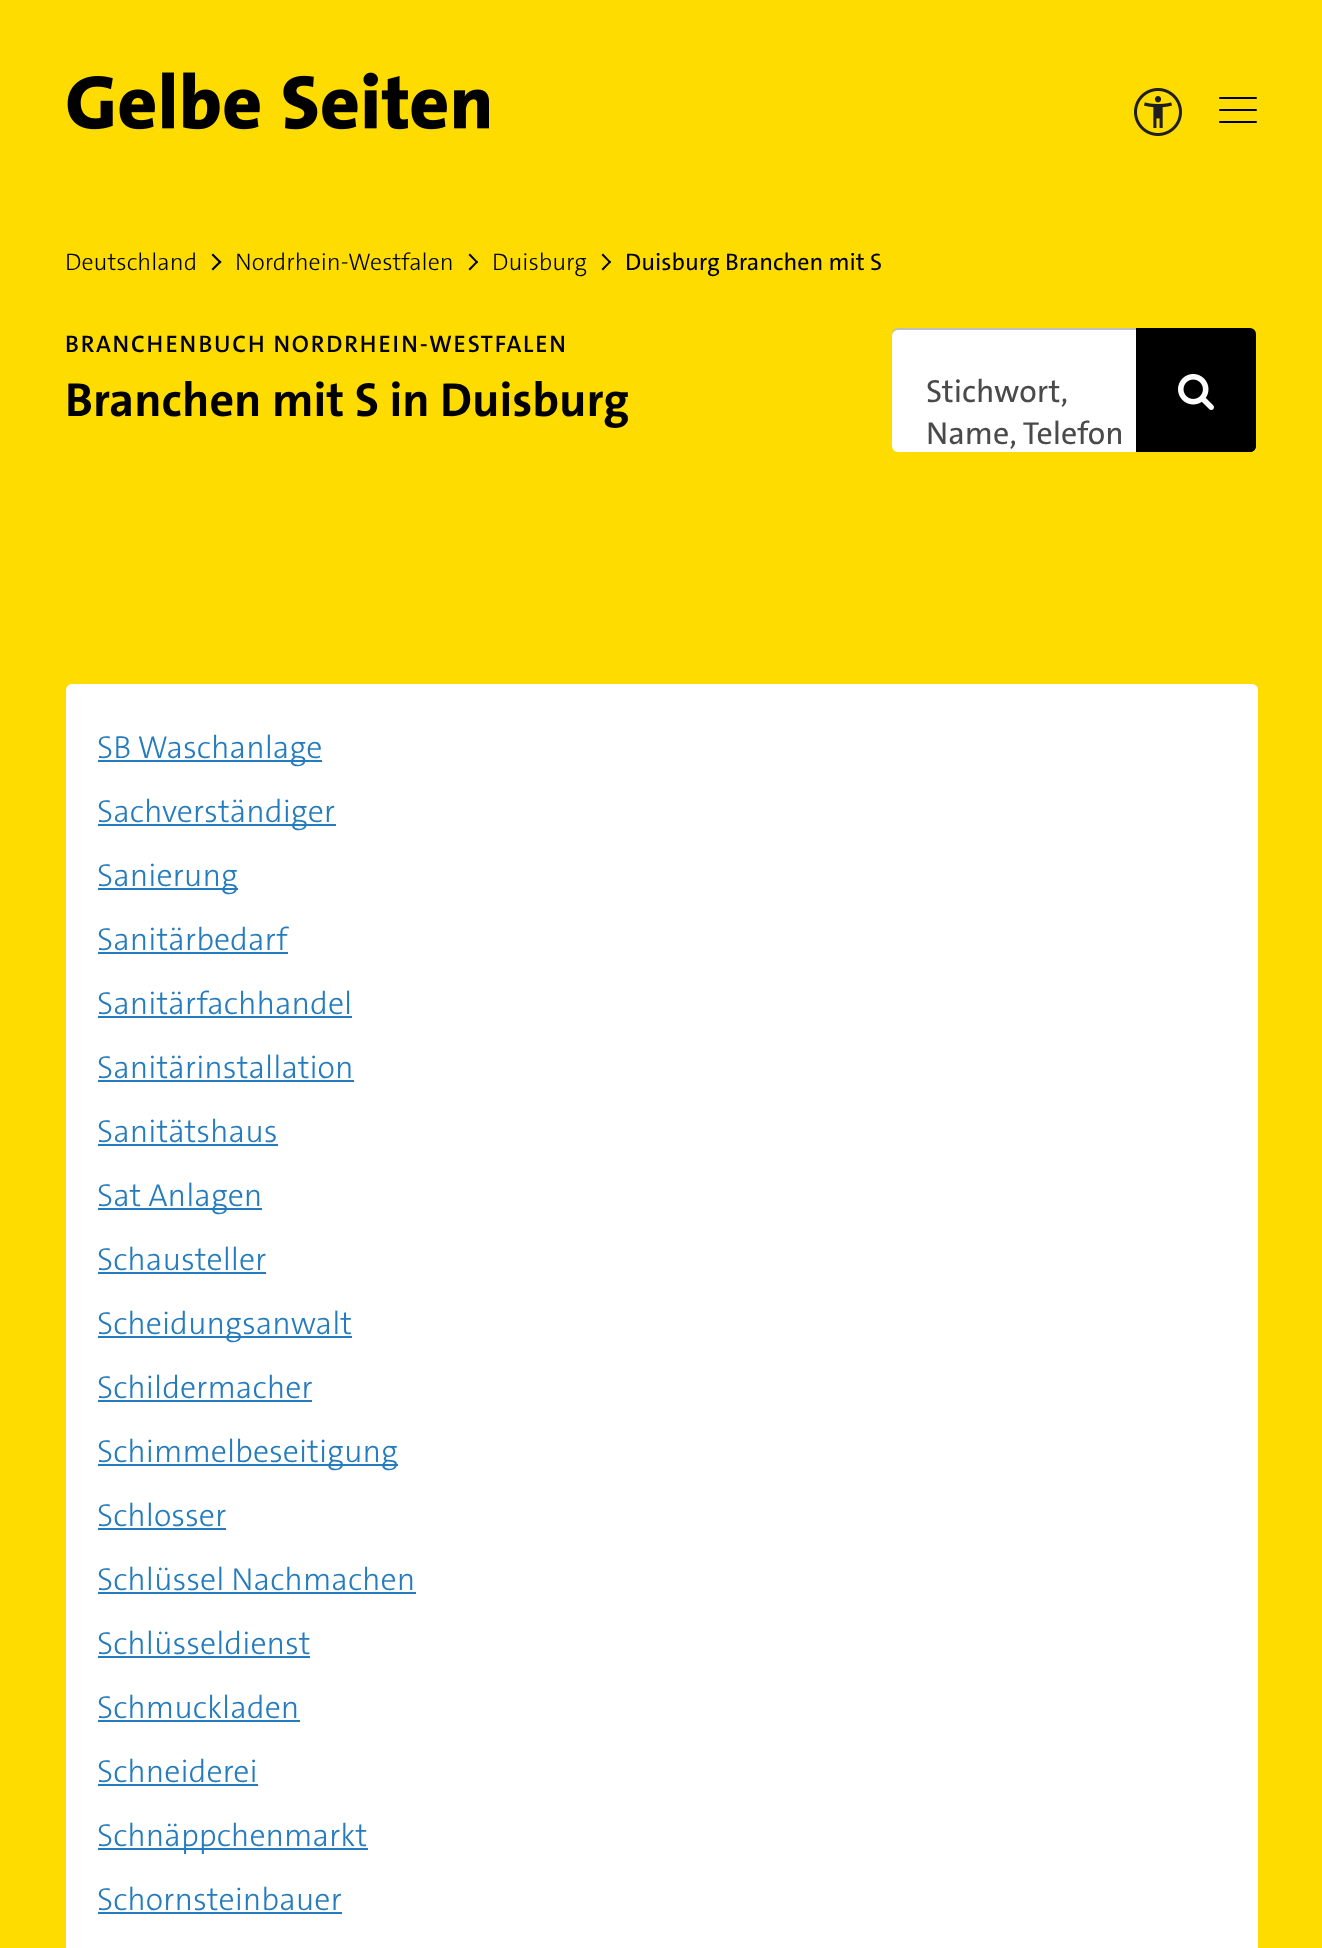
<!DOCTYPE html>
<meta charset="utf-8">
<style>body { margin: 0 } canvas { display: block }</style>
<canvas id="canvas" width="1322" height="1948"></canvas>
<script type="module">
  const canvas = document.getElementById("canvas");
  const ctx = canvas.getContext("2d");
  ctx.miterLimit = 4;
  ctx.fontKerning = "normal";
  async function loadImage(src) {
    const img = new Image();
    img.src = src;
    await img.decode();
    return img;
  }

  ctx.fillStyle = "#ffdc00";
  ctx.fillRect(0, 0, 1322, 1948);
  ctx.drawImage(await loadImage("img1.png"), 67, 72, 422, 58);
  ctx.drawImage(await loadImage("img2.png"), 1134, 88, 48, 48);
  ctx.beginPath();
  ctx.moveTo(1220, 98);
  ctx.lineTo(1256, 98);
  ctx.moveTo(1220, 110);
  ctx.lineTo(1256, 110);
  ctx.moveTo(1220, 122);
  ctx.lineTo(1256, 122);
  ctx.strokeStyle = "#000000";
  ctx.lineWidth = 2;
  ctx.lineCap = "round";
  ctx.lineJoin = "round";
  ctx.stroke();
  ctx.font = "300 24px 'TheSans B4'";
  ctx.fillStyle = "#000000";
  ctx.fillText("Deutschland", 65, 270);
  ctx.beginPath();
  ctx.moveTo(213, 253.5);
  ctx.lineTo(221.5, 262);
  ctx.lineTo(220, 263.5);
  ctx.lineTo(211.5, 255);
  ctx.closePath();
  ctx.fill();
  ctx.beginPath();
  ctx.moveTo(220, 260.5);
  ctx.lineTo(221.5, 262);
  ctx.lineTo(213, 270.5);
  ctx.lineTo(211.5, 269);
  ctx.closePath();
  ctx.fill();
  ctx.fillText("Nordrhein-Westfalen", 235, 270);
  ctx.beginPath();
  ctx.moveTo(470, 253.5);
  ctx.lineTo(478, 262);
  ctx.lineTo(477, 263.5);
  ctx.lineTo(468.5, 255);
  ctx.closePath();
  ctx.fill();
  ctx.beginPath();
  ctx.moveTo(477, 260.5);
  ctx.lineTo(478, 262);
  ctx.lineTo(470, 270.5);
  ctx.lineTo(468.5, 269);
  ctx.closePath();
  ctx.fill();
  ctx.fillText("Duisburg", 492, 270);
  ctx.beginPath();
  ctx.moveTo(603, 253.5);
  ctx.lineTo(611, 262);
  ctx.lineTo(610, 263.5);
  ctx.lineTo(601.5, 255);
  ctx.closePath();
  ctx.fill();
  ctx.beginPath();
  ctx.moveTo(610, 260.5);
  ctx.lineTo(611, 262);
  ctx.lineTo(603, 270.5);
  ctx.lineTo(601.5, 269);
  ctx.closePath();
  ctx.fill();
  ctx.font = "500 24px 'TheSans B4'";
  ctx.fillText("Duisburg Branchen mit S", 625, 270);
  ctx.letterSpacing = "1.8px";
  ctx.font = "600 24px 'TheSans B4'";
  ctx.fillText("BRANCHENBUCH NORDRHEIN-WESTFALEN", 65, 352);
  ctx.letterSpacing = "0px";
  ctx.font = "bold 48px 'TheSans B4'";
  ctx.fillText("Branchen mit S in Duisburg", 65, 416);
  ctx.fillStyle = "#c0c0c0";
  ctx.beginPath();
  ctx.moveTo(898, 328);
  ctx.bezierCurveTo(893, 328, 892, 332, 892, 336);
  ctx.bezierCurveTo(892, 333, 895, 330, 898, 330);
  ctx.lineTo(1136, 330);
  ctx.lineTo(1136, 328);
  ctx.closePath();
  ctx.fill();
  ctx.fillStyle = "#ffffff";
  ctx.beginPath();
  ctx.roundRect(892, 330, 244, 122, [6, 0, 0, 6]);
  ctx.fill();
  ctx.font = "500 32px 'TheSans B4'";
  ctx.fillStyle = "#4a4a4a";
  ctx.fillText("Stichwort,", 926, 402);
  ctx.fillText("Name, Telefon", 926, 444);
  ctx.fillStyle = "#000000";
  ctx.beginPath();
  ctx.roundRect(1136, 328, 120, 124, [0, 6, 6, 0]);
  ctx.fill();
  ctx.beginPath();
  ctx.moveTo(1136, 448);
  ctx.lineTo(1136, 452);
  ctx.lineTo(1250, 452);
  ctx.bezierCurveTo(1253, 452, 1256, 449, 1256, 446);
  ctx.lineTo(1256, 442);
  ctx.bezierCurveTo(1256, 445, 1253, 448, 1250, 448);
  ctx.closePath();
  ctx.fill();
  ctx.drawImage(await loadImage("img3.png"), 1178, 374, 36, 36);
  ctx.fillStyle = "#ffffff";
  ctx.beginPath();
  ctx.roundRect(66, 684, 1192, 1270, 6);
  ctx.fill();
  ctx.fillStyle = "#247bbd";
  ctx.fillRect(98, 760, 224, 2);
  ctx.font = "300 32px 'TheSans B4'";
  ctx.fillText("SB Waschanlage", 97, 758);
  ctx.fillRect(98, 824, 238, 2);
  ctx.fillText("Sachverständiger", 97, 822);
  ctx.fillRect(98, 888, 140, 2);
  ctx.fillText("Sanierung", 97, 886);
  ctx.fillText("Sanitärbedarf", 97, 950);
  ctx.fillRect(98, 952, 190, 2);
  ctx.fillText("Sanitärfachhandel", 97, 1014);
  ctx.fillRect(98, 1016, 254, 2);
  ctx.fillText("Sanitärinstallation", 97, 1078);
  ctx.fillRect(98, 1080, 256, 2);
  ctx.fillText("Sanitätshaus", 97, 1142);
  ctx.fillRect(98, 1144, 180, 2);
  ctx.fillRect(98, 1208, 164, 2);
  ctx.fillText("Sat Anlagen", 97, 1206);
  ctx.fillText("Schausteller", 97, 1270);
  ctx.fillRect(98, 1272, 168, 2);
  ctx.fillRect(98, 1336, 254, 2);
  ctx.fillText("Scheidungsanwalt", 97, 1334);
  ctx.fillText("Schildermacher", 97, 1398);
  ctx.fillRect(98, 1400, 214, 2);
  ctx.fillRect(98, 1464, 300, 2);
  ctx.fillText("Schimmelbeseitigung", 97, 1462);
  ctx.fillText("Schlosser", 97, 1526);
  ctx.fillRect(98, 1528, 128, 2);
  ctx.fillText("Schlüssel Nachmachen", 97, 1590);
  ctx.fillRect(98, 1592, 318, 2);
  ctx.fillText("Schlüsseldienst", 97, 1654);
  ctx.fillRect(98, 1656, 212, 2);
  ctx.fillText("Schmuckladen", 97, 1718);
  ctx.fillRect(98, 1720, 202, 2);
  ctx.fillText("Schneiderei", 97, 1782);
  ctx.fillRect(98, 1784, 160, 2);
  ctx.fillRect(98, 1848, 270, 2);
  ctx.fillText("Schnäppchenmarkt", 97, 1846);
  ctx.fillText("Schornsteinbauer", 97, 1910);
  ctx.fillRect(98, 1912, 244, 2);
</script>
